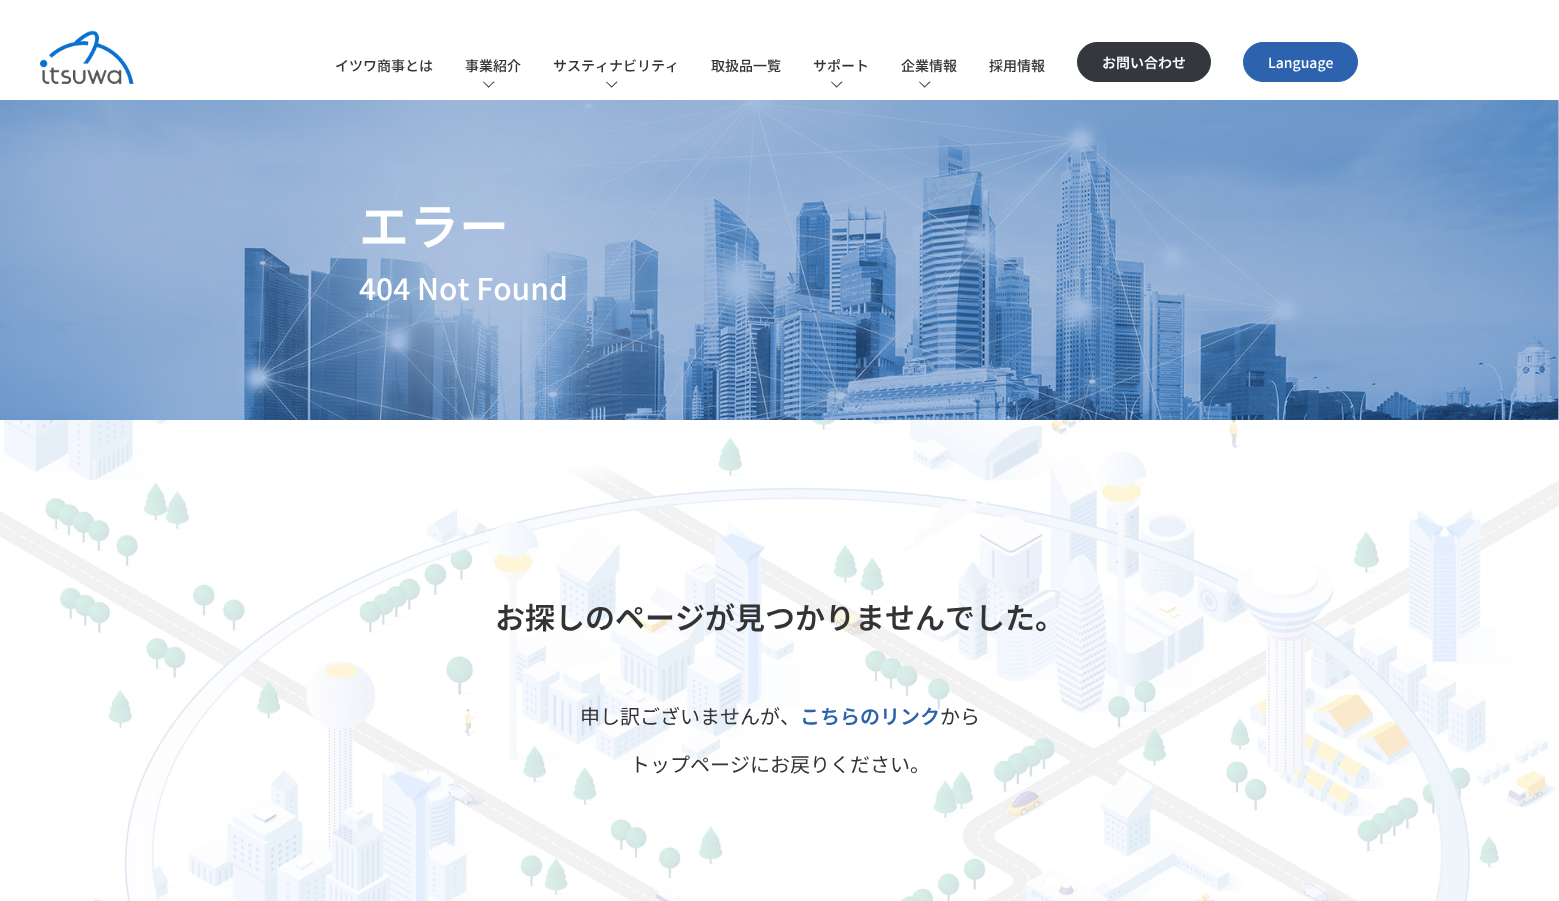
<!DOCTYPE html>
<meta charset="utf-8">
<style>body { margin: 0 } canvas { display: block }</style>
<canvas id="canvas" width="1559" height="901"></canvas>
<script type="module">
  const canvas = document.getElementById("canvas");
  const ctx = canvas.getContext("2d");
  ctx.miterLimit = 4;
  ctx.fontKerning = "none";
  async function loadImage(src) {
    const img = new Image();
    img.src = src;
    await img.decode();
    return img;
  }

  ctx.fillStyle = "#ffffff";
  ctx.fillRect(0, 0, 1559, 901);
  ctx.drawImage(await loadImage("img1.png"), 40, 30, 94, 54);
  ctx.font = "500 14px Noto Sans JP";
  ctx.fillStyle = "#333333";
  ctx.fillText("イツワ商事とは", 335, 71);
  ctx.fillText("事業紹介", 465, 71);
  ctx.beginPath();
  ctx.moveTo(494.5, 82);
  ctx.lineTo(488.5, 87.5);
  ctx.lineTo(488, 87);
  ctx.lineTo(493.5, 81.5);
  ctx.closePath();
  ctx.fill();
  ctx.beginPath();
  ctx.moveTo(489.5, 87);
  ctx.lineTo(488.5, 87.5);
  ctx.lineTo(483, 82);
  ctx.lineTo(483.5, 81.5);
  ctx.closePath();
  ctx.fill();
  ctx.fillText("サスティナビリティ", 553, 71);
  ctx.beginPath();
  ctx.moveTo(617.5, 82);
  ctx.lineTo(611.5, 87.5);
  ctx.lineTo(611, 87);
  ctx.lineTo(616.5, 81.5);
  ctx.closePath();
  ctx.fill();
  ctx.beginPath();
  ctx.moveTo(612.5, 87);
  ctx.lineTo(611.5, 87.5);
  ctx.lineTo(606, 82);
  ctx.lineTo(606.5, 81.5);
  ctx.closePath();
  ctx.fill();
  ctx.fillText("取扱品一覧", 711, 71);
  ctx.fillText("サポート", 813, 71);
  ctx.beginPath();
  ctx.moveTo(842.5, 82);
  ctx.lineTo(836.5, 87.5);
  ctx.lineTo(836, 87);
  ctx.lineTo(841.5, 81.5);
  ctx.closePath();
  ctx.fill();
  ctx.beginPath();
  ctx.moveTo(837.5, 87);
  ctx.lineTo(836.5, 87.5);
  ctx.lineTo(831, 82);
  ctx.lineTo(831.5, 81.5);
  ctx.closePath();
  ctx.fill();
  ctx.fillText("企業情報", 901, 71);
  ctx.beginPath();
  ctx.moveTo(930.5, 82);
  ctx.lineTo(924.5, 87.5);
  ctx.lineTo(924, 87);
  ctx.lineTo(929.5, 81.5);
  ctx.closePath();
  ctx.fill();
  ctx.beginPath();
  ctx.moveTo(925.5, 87);
  ctx.lineTo(924.5, 87.5);
  ctx.lineTo(919, 82);
  ctx.lineTo(919.5, 81.5);
  ctx.closePath();
  ctx.fill();
  ctx.fillText("採用情報", 989, 71);
  ctx.fillStyle = "#34373e";
  ctx.beginPath();
  ctx.roundRect(1077.5, 42.5, 133, 39, 19.5);
  ctx.fill();
  ctx.strokeStyle = "#34373e";
  ctx.stroke();
  ctx.font = "600 14px Noto Sans JP";
  ctx.fillStyle = "#ffffff";
  ctx.fillText("お問い合わせ", 1102, 68);
  ctx.fillStyle = "#2c62ae";
  ctx.beginPath();
  ctx.roundRect(1243.5, 42.5, 114, 39, 19.5);
  ctx.fill();
  ctx.strokeStyle = "#2c62ae";
  ctx.stroke();
  ctx.font = "500 14px Noto Sans JP";
  ctx.fillStyle = "#ffffff";
  ctx.fillText("Language", 1268, 68);
  ctx.drawImage(await loadImage("img2.png"), 0, 100, 1559, 320);
  ctx.font = "600 50px Noto Sans JP";
  ctx.fillText("エラー", 359, 245);
  ctx.font = "500 30px Noto Sans JP";
  ctx.fillText("404 Not Found", 359, 300);
  ctx.drawImage(await loadImage("img3.png"), 0, 420, 1559, 481);
  ctx.fillStyle = "rgba(255, 255, 255, 0.8)";
  ctx.fillRect(0, 420, 1559, 481);
  ctx.font = "600 30px Noto Sans JP";
  ctx.fillStyle = "#333333";
  ctx.fillText("お探しのページが見つかりませんでした。", 495, 629);
  ctx.font = "20px Noto Sans JP";
  ctx.fillText("申し訳ございませんが、", 580, 724);
  ctx.font = "600 20px Noto Sans JP";
  ctx.fillStyle = "#2c62ae";
  ctx.fillText("こちらのリンク", 800, 724);
  ctx.font = "20px Noto Sans JP";
  ctx.fillStyle = "#333333";
  ctx.fillText("から", 940, 724);
  ctx.fillText("トップページにお戻りください。", 630, 772);
</script>
